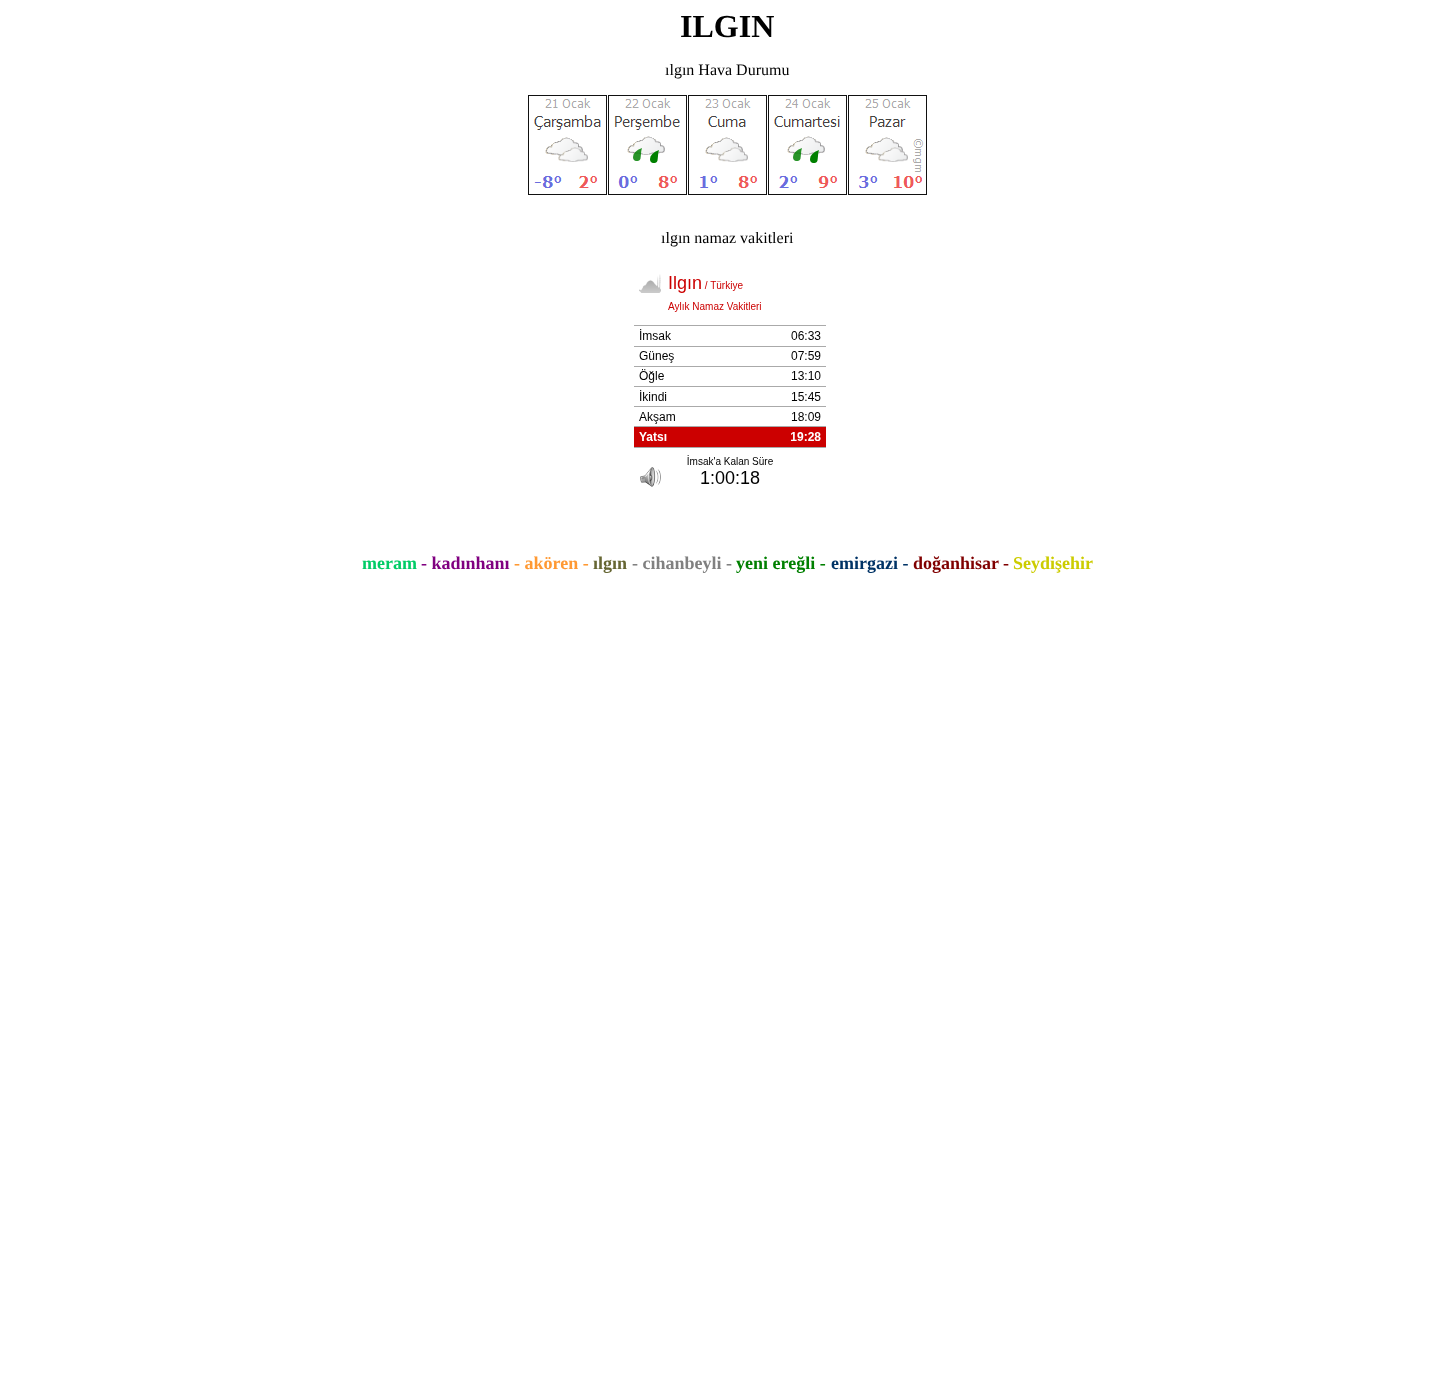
<!DOCTYPE html>
<meta charset="utf-8">
<style>body { margin: 0 } canvas { display: block }</style>
<canvas id="canvas" width="1455" height="1398"></canvas>
<script type="module">
  const canvas = document.getElementById("canvas");
  const ctx = canvas.getContext("2d");
  ctx.miterLimit = 4;
  ctx.fontKerning = "normal";
  async function loadImage(src) {
    const img = new Image();
    img.src = src;
    await img.decode();
    return img;
  }

  ctx.fillStyle = "#ffffff";
  ctx.fillRect(0, 0, 1455, 1398);
  ctx.font = "bold 32px Liberation Serif";
  ctx.fillStyle = "#000000";
  ctx.fillText("ILGIN", 680, 37);
  ctx.font = "16px Liberation Serif";
  ctx.fillText("ılgın Hava Durumu", 665, 75);
  ctx.drawImage(await loadImage("img1.png"), 528, 95, 399, 100);
  ctx.fillText("ılgın namaz vakitleri", 661, 243);
  ctx.drawImage(await loadImage("img2.png"), 634, 274, 192, 213);
  ctx.font = "bold 18px Liberation Serif";
  ctx.fillStyle = "#00cc66";
  ctx.fillText("meram", 362, 569);
  ctx.fillStyle = "#800080";
  ctx.fillText("- kadınhanı", 421, 569);
  ctx.fillStyle = "#ff9933";
  ctx.fillText("- akören -", 514, 569);
  ctx.fillStyle = "#666633";
  ctx.fillText("ılgın", 593, 569);
  ctx.fillStyle = "#808080";
  ctx.fillText("- cihanbeyli -", 632, 569);
  ctx.fillStyle = "#008000";
  ctx.fillText("yeni ereğli -", 736, 569);
  ctx.fillStyle = "#003366";
  ctx.fillText("emirgazi -", 831, 569);
  ctx.fillStyle = "#800000";
  ctx.fillText("doğanhisar", 913, 569);
  ctx.fillText("-", 1003, 569);
  ctx.fillStyle = "#cccc00";
  ctx.fillText("Seydişehir", 1013, 569);
</script>
